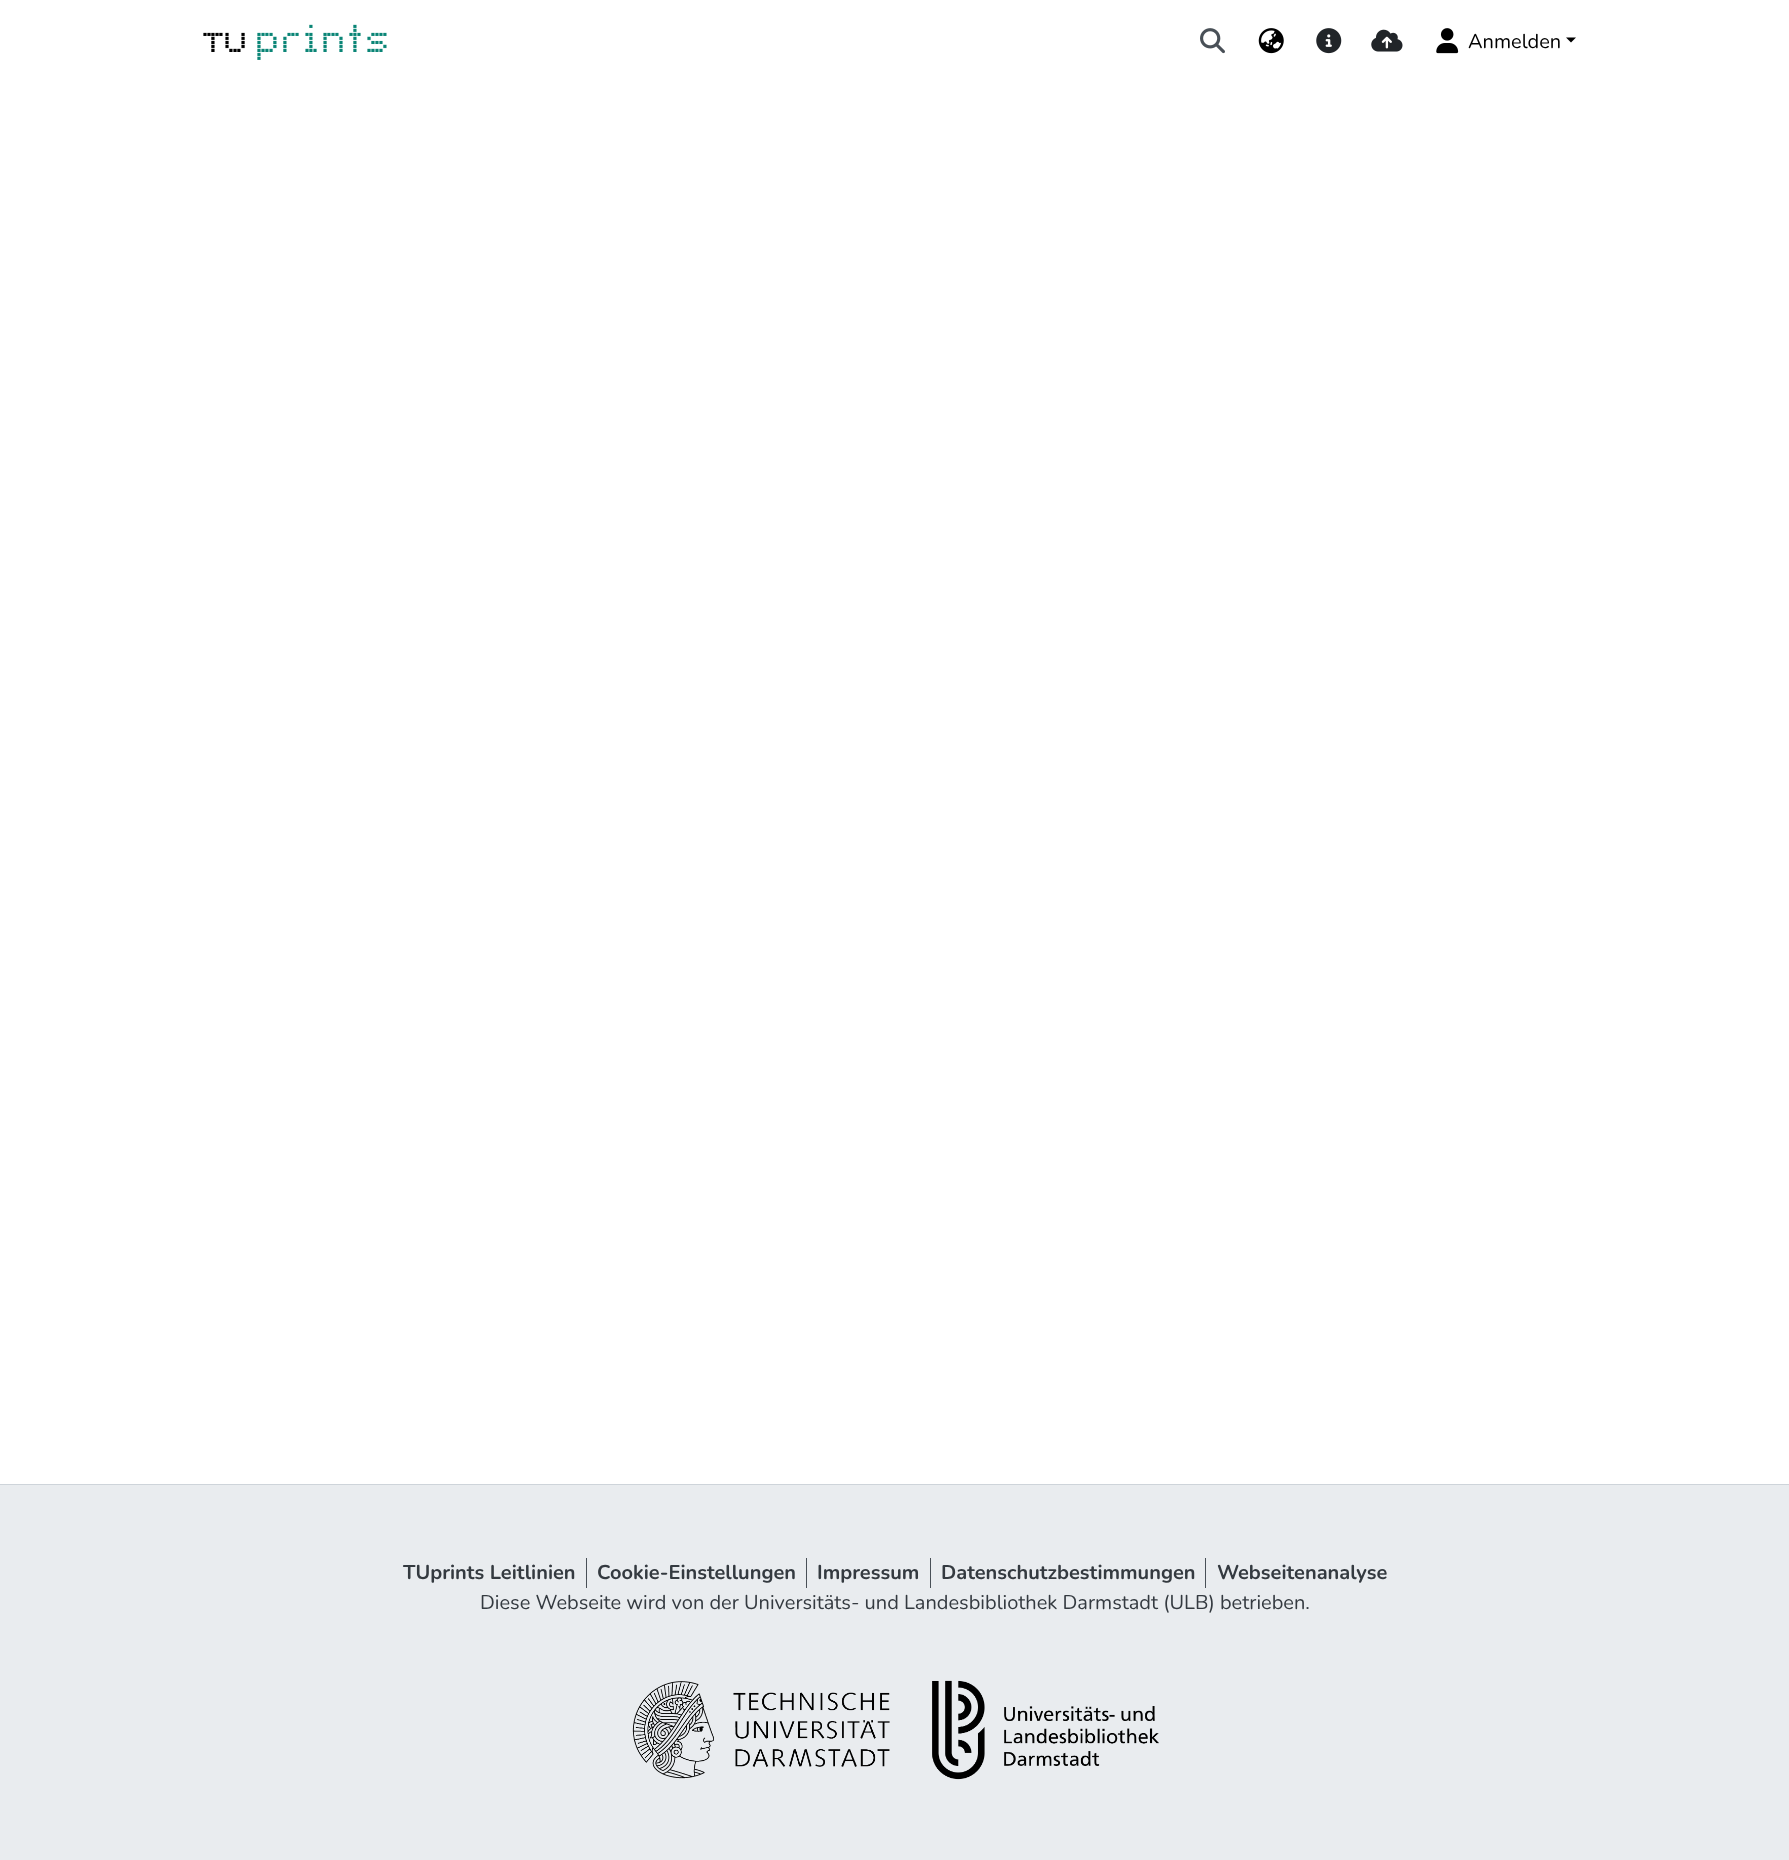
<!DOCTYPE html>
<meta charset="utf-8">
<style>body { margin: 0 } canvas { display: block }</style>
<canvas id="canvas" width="1789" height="1860"></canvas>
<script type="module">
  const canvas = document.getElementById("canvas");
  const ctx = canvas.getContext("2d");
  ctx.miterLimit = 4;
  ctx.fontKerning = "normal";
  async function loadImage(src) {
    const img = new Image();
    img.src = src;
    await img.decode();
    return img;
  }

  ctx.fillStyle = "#ffffff";
  ctx.fillRect(0, 0, 1789, 1860);
  ctx.drawImage(await loadImage("img1.png"), 203, 24, 184, 36);
  ctx.drawImage(await loadImage("img2.png"), 1200, 28, 25, 26);
  ctx.drawImage(await loadImage("img3.png"), 1258, 28, 26, 26);
  ctx.drawImage(await loadImage("img4.png"), 1316, 28, 26, 26);
  ctx.drawImage(await loadImage("img5.png"), 1371, 29, 32, 23);
  ctx.drawImage(await loadImage("img6.png"), 1436, 28, 23, 26);
  ctx.font = "20px Nunito";
  ctx.fillStyle = "#000000";
  ctx.fillText("Anmelden", 1468, 48);
  ctx.beginPath();
  ctx.moveTo(1566, 37.5);
  ctx.lineTo(1576, 37.5);
  ctx.lineTo(1571, 42.5);
  ctx.closePath();
  ctx.fill();
  ctx.fillStyle = "#e9ecef";
  ctx.fillRect(0, 1485, 1789, 375);
  ctx.fillStyle = "#ced4da";
  ctx.fillRect(0, 1484, 1789, 1);
  ctx.font = "bold 20px Nunito";
  ctx.fillStyle = "#343a40";
  ctx.fillText("TUprints Leitlinien", 403, 1579);
  ctx.fillStyle = "#495057";
  ctx.fillRect(586, 1558, 1, 30);
  ctx.fillStyle = "#343a40";
  ctx.fillText("Cookie-Einstellungen", 597, 1579);
  ctx.fillStyle = "#495057";
  ctx.fillRect(806, 1558, 1, 30);
  ctx.fillStyle = "#343a40";
  ctx.fillText("Impressum", 817, 1579);
  ctx.fillStyle = "#495057";
  ctx.fillRect(930, 1558, 1, 30);
  ctx.fillStyle = "#343a40";
  ctx.fillText("Datenschutzbestimmungen", 941, 1579);
  ctx.fillStyle = "#495057";
  ctx.fillRect(1205, 1558, 1, 30);
  ctx.fillStyle = "#343a40";
  ctx.fillText("Webseitenanalyse", 1217, 1579);
  ctx.font = "20px Nunito";
  ctx.fillText("Diese Webseite wird von der Universitäts- und Landesbibliothek Darmstadt (ULB) betrieben.", 480, 1609);
  ctx.drawImage(await loadImage("img7.png"), 632, 1681, 258, 98);
  ctx.drawImage(await loadImage("img8.png"), 932, 1680, 227, 100);
</script>
